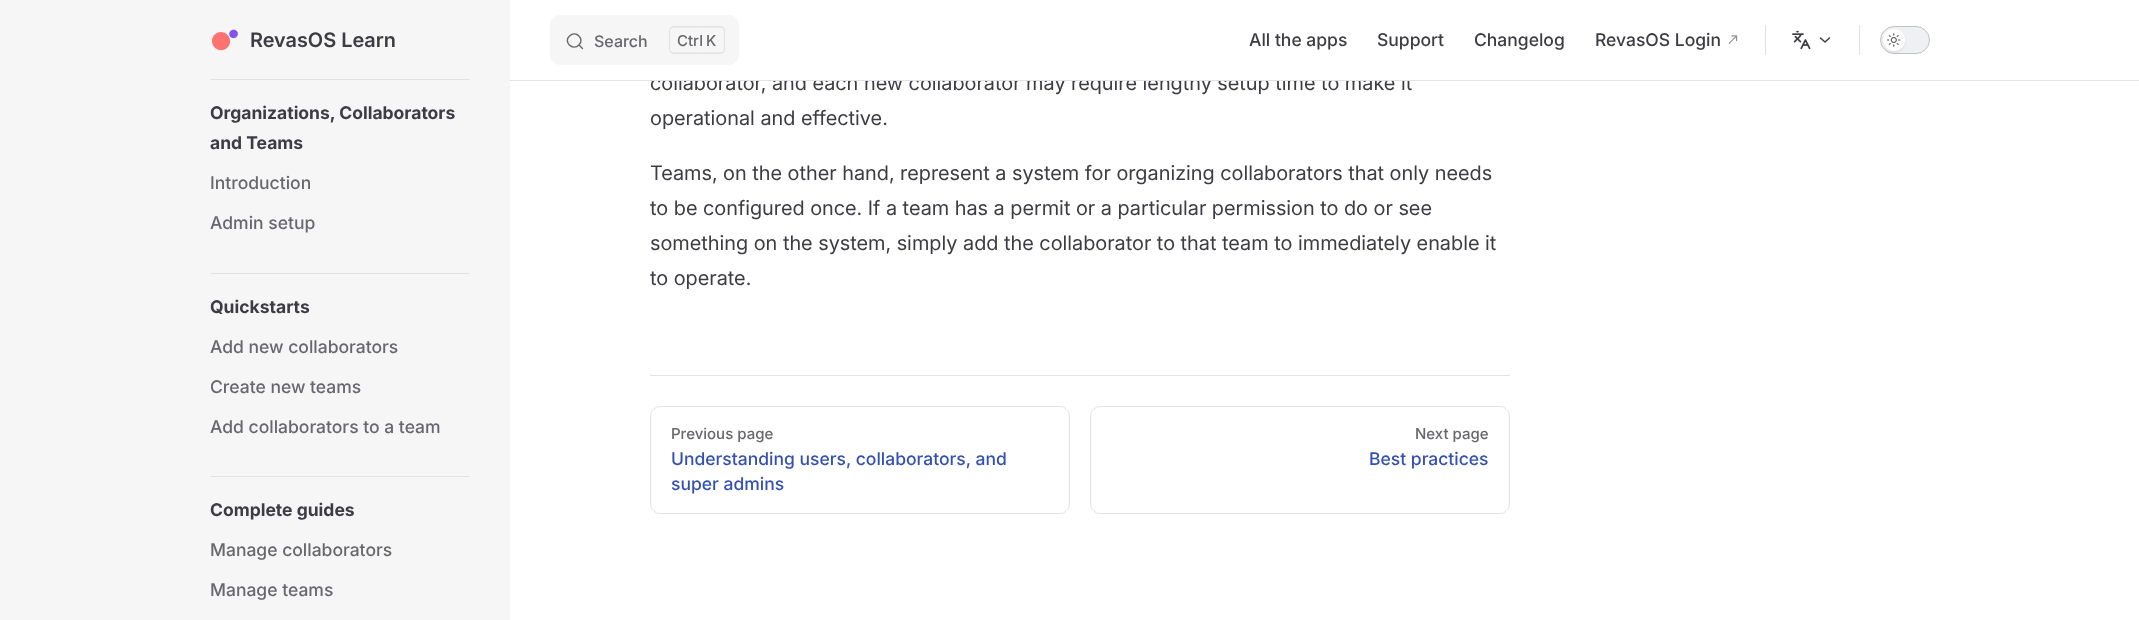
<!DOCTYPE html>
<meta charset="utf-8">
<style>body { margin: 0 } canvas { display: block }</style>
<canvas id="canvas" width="2139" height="620"></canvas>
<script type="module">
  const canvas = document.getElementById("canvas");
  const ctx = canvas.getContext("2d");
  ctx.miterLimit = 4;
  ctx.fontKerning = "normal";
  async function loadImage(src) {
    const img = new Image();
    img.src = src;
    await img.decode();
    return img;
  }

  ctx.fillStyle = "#ffffff";
  ctx.fillRect(0, 0, 2139, 620);
  ctx.fillStyle = "#f6f6f7";
  ctx.fillRect(0, 0, 510, 620);
  ctx.fillStyle = "#e2e2e3";
  ctx.fillRect(210, 79, 260, 1);
  ctx.drawImage(await loadImage("img1.png"), 212, 29, 26, 22);
  ctx.font = "600 20px Inter";
  ctx.fillStyle = "#3c3c43";
  ctx.fillText("RevasOS Learn", 250, 47);
  ctx.font = "20px Inter";
  ctx.fillText("collaborator, and each new collaborator may require lengthy setup time to make it", 650, 90);
  ctx.fillStyle = "#ffffff";
  ctx.fillRect(653, 75, 759, 5);
  ctx.fillStyle = "#f6f6f7";
  ctx.beginPath();
  ctx.roundRect(550, 15, 189, 50, 10);
  ctx.fill();
  ctx.beginPath();
  ctx.moveTo(579, 45);
  ctx.lineTo(582.5, 48.5);
  ctx.lineTo(579, 45);
  ctx.bezierCurveTo(572.5, 51.5, 563, 41.5, 569.5, 36);
  ctx.bezierCurveTo(576, 30, 585, 39, 579, 45);
  ctx.closePath();
  ctx.strokeStyle = "#67676c";
  ctx.lineWidth = 1.4;
  ctx.lineCap = "round";
  ctx.lineJoin = "round";
  ctx.stroke();
  ctx.font = "500 16px Inter";
  ctx.fillStyle = "#67676c";
  ctx.fillText("Search", 594, 47);
  ctx.fillStyle = "#e2e2e3";
  ctx.beginPath();
  ctx.moveTo(674, 26);
  ctx.lineTo(702.5, 26);
  ctx.lineTo(702.5, 54);
  ctx.lineTo(674, 54);
  ctx.bezierCurveTo(671, 54, 669, 51.5, 669, 49);
  ctx.lineTo(669, 31);
  ctx.bezierCurveTo(669, 28.5, 671, 26, 674, 26);
  ctx.closePath();
  ctx.moveTo(674, 27.5);
  ctx.lineTo(702.5, 27.5);
  ctx.lineTo(702.5, 52.5);
  ctx.lineTo(674, 52.5);
  ctx.bezierCurveTo(671.5, 52.5, 670, 51, 670, 49);
  ctx.lineTo(670, 31);
  ctx.bezierCurveTo(670, 29, 671.5, 27.5, 674, 27.5);
  ctx.closePath();
  ctx.fill("evenodd");
  ctx.font = "500 15px Inter";
  ctx.fillStyle = "#67676c";
  ctx.fillText("Ctrl", 677, 46);
  ctx.fillStyle = "#e2e2e3";
  ctx.beginPath();
  ctx.moveTo(702.5, 26);
  ctx.lineTo(720, 26);
  ctx.bezierCurveTo(723, 26, 725, 28.5, 725, 31);
  ctx.lineTo(725, 49);
  ctx.bezierCurveTo(725, 51.5, 723, 54, 720, 54);
  ctx.lineTo(702.5, 54);
  ctx.closePath();
  ctx.moveTo(702.5, 27.5);
  ctx.lineTo(720, 27.5);
  ctx.bezierCurveTo(722, 27.5, 724, 29, 724, 31);
  ctx.lineTo(724, 49);
  ctx.bezierCurveTo(724, 51, 722, 52.5, 720, 52.5);
  ctx.lineTo(702.5, 52.5);
  ctx.closePath();
  ctx.fill("evenodd");
  ctx.fillStyle = "#67676c";
  ctx.fillText("K", 706, 46);
  ctx.font = "500 17.5px Inter";
  ctx.fillStyle = "#3c3c43";
  ctx.fillText("All the apps", 1249, 46);
  ctx.fillText("Support", 1377, 46);
  ctx.fillText("Changelog", 1474, 46);
  ctx.fillText("RevasOS Login", 1595, 46);
  ctx.drawImage(await loadImage("img2.png"), 1728, 35, 10, 9);
  ctx.fillStyle = "#e2e2e3";
  ctx.fillRect(1765, 25, 1, 30);
  ctx.drawImage(await loadImage("img3.png"), 1792, 30, 19, 20);
  ctx.beginPath();
  ctx.moveTo(1820.5, 38);
  ctx.lineTo(1825, 42);
  ctx.lineTo(1829.5, 38);
  ctx.strokeStyle = "#3c3c43";
  ctx.lineWidth = 1.5;
  ctx.stroke();
  ctx.fillRect(1859, 25, 1, 30);
  ctx.fillStyle = "#eff0f3";
  ctx.beginPath();
  ctx.roundRect(1880.5, 26.5, 49, 27, 13.5);
  ctx.fill();
  ctx.strokeStyle = "#c2c2c4";
  ctx.lineWidth = 1;
  ctx.lineJoin = "miter";
  ctx.stroke();
  ctx.fillStyle = "rgba(0, 0, 0, 0.06)";
  ctx.filter = "blur(1px)";
  ctx.beginPath();
  ctx.roundRect(1883, 30, 22, 23, 11);
  ctx.fill();
  ctx.filter = "none";
  ctx.fillStyle = "#ffffff";
  ctx.beginPath();
  ctx.arc(1894, 40, 11, 0, Math.PI * 2);
  ctx.fill();
  ctx.drawImage(await loadImage("img4.png"), 1887, 33, 14, 14);
  ctx.fillStyle = "#e2e2e3";
  ctx.fillRect(510, 80, 1629, 1);
  ctx.font = "bold 17.5px Inter";
  ctx.fillStyle = "#3c3c43";
  ctx.fillText("Organizations, Collaborators", 210, 119);
  ctx.fillText("and Teams", 210, 149);
  ctx.font = "500 17.5px Inter";
  ctx.fillStyle = "#67676c";
  ctx.fillText("Introduction", 210, 189);
  ctx.fillText("Admin setup", 210, 229);
  ctx.fillStyle = "#e2e2e3";
  ctx.fillRect(210, 273, 260, 1);
  ctx.font = "bold 17.5px Inter";
  ctx.fillStyle = "#3c3c43";
  ctx.fillText("Quickstarts", 210, 313);
  ctx.font = "500 17.5px Inter";
  ctx.fillStyle = "#67676c";
  ctx.fillText("Add new collaborators", 210, 353);
  ctx.fillText("Create new teams", 210, 393);
  ctx.fillText("Add collaborators to a team", 210, 433);
  ctx.fillStyle = "#e2e2e3";
  ctx.fillRect(210, 476, 260, 1);
  ctx.font = "bold 17.5px Inter";
  ctx.fillStyle = "#3c3c43";
  ctx.fillText("Complete guides", 210, 516);
  ctx.font = "500 17.5px Inter";
  ctx.fillStyle = "#67676c";
  ctx.fillText("Manage collaborators", 210, 556);
  ctx.fillText("Manage teams", 210, 596);
  ctx.font = "20px Inter";
  ctx.fillStyle = "#3c3c43";
  ctx.fillText("operational and effective.", 650, 125);
  ctx.fillText("Teams, on the other hand, represent a system for organizing collaborators that only needs", 650, 180);
  ctx.fillText("to be configured once. If a team has a permit or a particular permission to do or see", 650, 215);
  ctx.fillText("something on the system, simply add the collaborator to that team to immediately enable it", 650, 250);
  ctx.fillText("to operate.", 650, 285);
  ctx.fillStyle = "#e2e2e3";
  ctx.fillRect(650, 375, 860, 1);
  ctx.beginPath();
  ctx.roundRect(650.5, 406.5, 419, 107, 9.5);
  ctx.strokeStyle = "#e2e2e3";
  ctx.stroke();
  ctx.font = "500 15px Inter";
  ctx.fillStyle = "#67676c";
  ctx.fillText("Previous page", 671, 439);
  ctx.font = "500 17.5px Inter";
  ctx.fillStyle = "#3451b2";
  ctx.fillText("Understanding users, collaborators, and", 671, 465);
  ctx.fillText("super admins", 671, 490);
  ctx.beginPath();
  ctx.roundRect(1090.5, 406.5, 419, 107, 9.5);
  ctx.stroke();
  ctx.font = "500 15px Inter";
  ctx.fillStyle = "#67676c";
  ctx.fillText("Next page", 1415, 439);
  ctx.font = "500 17.5px Inter";
  ctx.fillStyle = "#3451b2";
  ctx.fillText("Best practices", 1369, 465);
</script>
